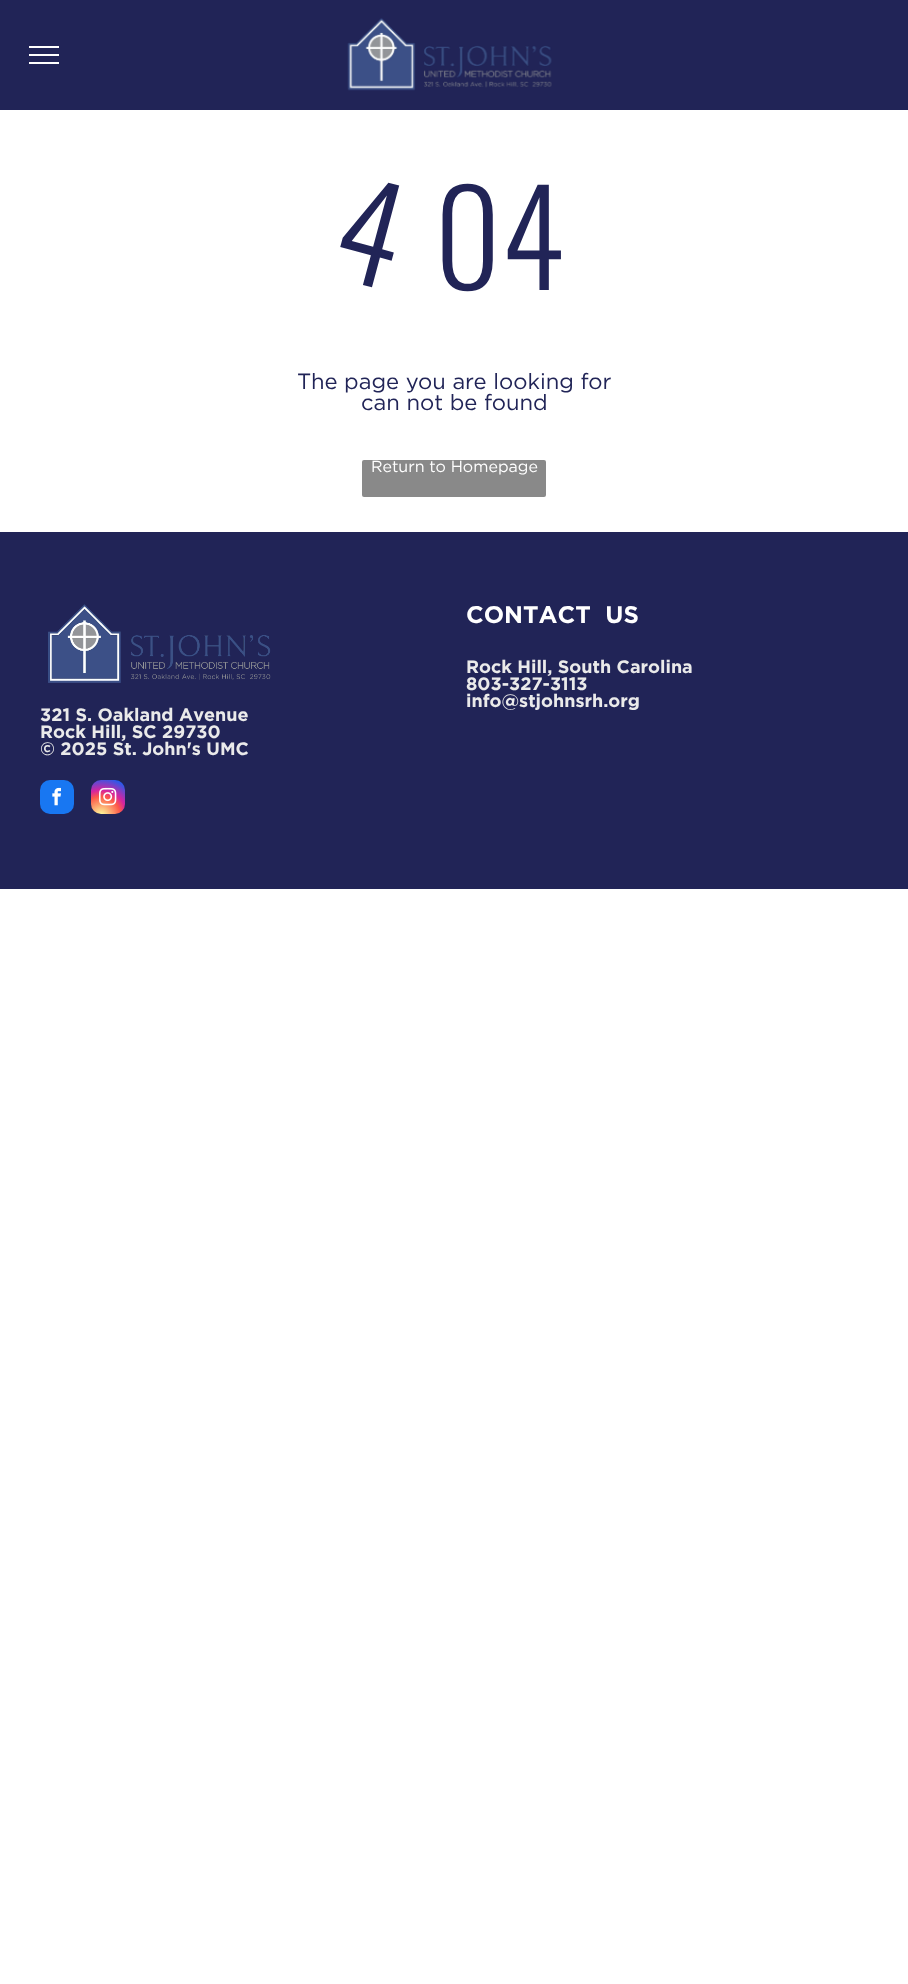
<!DOCTYPE html>
<meta charset="utf-8">
<style>body { margin: 0 } canvas { display: block }</style>
<canvas id="canvas" width="908" height="1984"></canvas>
<script type="module">
  const canvas = document.getElementById("canvas");
  const ctx = canvas.getContext("2d");
  ctx.miterLimit = 4;
  ctx.fontKerning = "normal";
  async function loadImage(src) {
    const img = new Image();
    img.src = src;
    await img.decode();
    return img;
  }
  let gradient;

  ctx.fillStyle = "#ffffff";
  ctx.fillRect(0, 0, 908, 1984);
  ctx.fillStyle = "#212457";
  ctx.fillRect(0, 0, 908, 110);
  ctx.drawImage(await loadImage("img1.png"), 347, 18, 205, 73);
  ctx.fillStyle = "#ffffff";
  ctx.fillRect(29, 46, 30, 2);
  ctx.fillRect(29, 54, 30, 2);
  ctx.fillRect(29, 62, 30, 2);
  ctx.font = "300 130px Oswald";
  ctx.fillStyle = "#212457";
  ctx.save();
  ctx.translate(326, 275);
  ctx.rotate(15 * Math.PI / 180);
  ctx.fillText("4", 0, 0);
  ctx.restore();
  ctx.fillText("04", 434, 290);
  ctx.font = "22px Gotham";
  ctx.fillText("The page you are looking for", 297, 389);
  ctx.fillText("can not be found", 361, 410);
  ctx.fillStyle = "#898989";
  ctx.beginPath();
  ctx.roundRect(362, 460, 184, 37, 2);
  ctx.fill();
  ctx.font = "16px Gotham";
  ctx.fillStyle = "#ffffff";
  ctx.fillText("Return to Homepage", 371, 472);
  ctx.fillStyle = "#212457";
  ctx.fillRect(0, 532, 908, 357);
  ctx.font = "bold 24px Gotham";
  ctx.fillStyle = "#ffffff";
  ctx.fillText("CONTACT  US", 466, 623);
  ctx.font = "bold 18px Gotham";
  ctx.fillStyle = "#eaeaea";
  ctx.fillText("Rock Hill, South Carolina", 466, 673);
  ctx.fillText("803-327-3113", 466, 690);
  ctx.fillText("info@stjohnsrh.org", 466, 707);
  ctx.drawImage(await loadImage("img2.png"), 48, 604, 223, 79);
  ctx.fillText("321 S. Oakland Avenue", 40, 721);
  ctx.fillText("Rock Hill, SC 29730", 40, 738);
  ctx.fillText("© 2025 St. John's UMC", 40, 755);
  ctx.fillStyle = "#1877f2";
  ctx.beginPath();
  ctx.roundRect(40, 780, 34, 34, 10);
  ctx.fill();
  ctx.drawImage(await loadImage("img3.png"), 52, 787, 9, 19);
  gradient = ctx.createRadialGradient(101, 816, 0, 101, 816, 43);
  gradient.addColorStop(0, "#fdf497");
  gradient.addColorStop(0.05, "#fdf497");
  gradient.addColorStop(0.45, "#fd5949");
  gradient.addColorStop(0.6, "#d6249f");
  gradient.addColorStop(0.9, "#285aeb");
  ctx.fillStyle = gradient;
  ctx.beginPath();
  ctx.roundRect(91, 780, 34, 34, 10);
  ctx.fill();
  ctx.drawImage(await loadImage("img4.png"), 99, 787, 18, 19);
</script>
